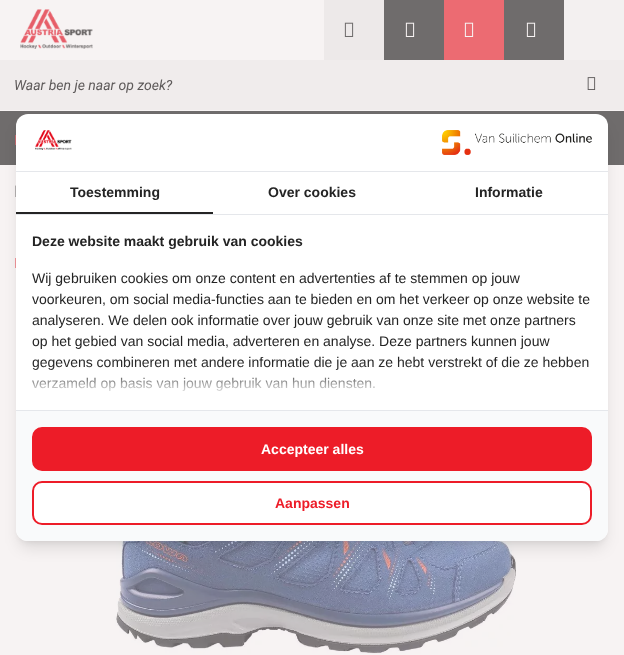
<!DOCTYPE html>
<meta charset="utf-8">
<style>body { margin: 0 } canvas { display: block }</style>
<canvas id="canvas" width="624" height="655"></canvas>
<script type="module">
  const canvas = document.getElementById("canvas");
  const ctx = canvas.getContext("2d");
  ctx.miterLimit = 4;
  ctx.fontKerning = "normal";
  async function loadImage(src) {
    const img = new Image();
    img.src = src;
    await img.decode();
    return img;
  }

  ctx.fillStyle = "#f7f3f3";
  ctx.fillRect(0, 0, 624, 655);
  ctx.drawImage(await loadImage("img1.png"), 20, 9, 73, 40);
  ctx.fillStyle = "#ede9e9";
  ctx.fillRect(324, 0, 60, 60);
  ctx.drawImage(await loadImage("img2.png"), 344, 22, 10, 15);
  ctx.fillStyle = "#6f6c6c";
  ctx.fillRect(384, 0, 60, 60);
  ctx.drawImage(await loadImage("img3.png"), 405, 22, 10, 15);
  ctx.fillStyle = "#ec6b72";
  ctx.fillRect(444, 0, 60, 60);
  ctx.drawImage(await loadImage("img4.png"), 464, 22, 10, 15);
  ctx.fillStyle = "#6f6c6c";
  ctx.fillRect(504, 0, 60, 60);
  ctx.drawImage(await loadImage("img3.png"), 526, 22, 10, 15);
  ctx.fillStyle = "#f3f0f0";
  ctx.fillRect(564, 0, 60, 60);
  ctx.fillStyle = "#f0ecec";
  ctx.fillRect(0, 60, 624, 50);
  ctx.font = "italic 14px Roboto";
  ctx.fillStyle = "#5e5a5a";
  ctx.fillText("Waar ben je naar op zoek?", 14, 90);
  ctx.drawImage(await loadImage("img5.png"), 587, 77, 9, 13);
  ctx.fillStyle = "#6f6c6c";
  ctx.fillRect(0, 111, 624, 54);
  ctx.drawImage(await loadImage("img6.png"), 15, 135, 1, 10);
  ctx.drawImage(await loadImage("img7.png"), 15, 185, 1, 12);
  ctx.drawImage(await loadImage("img8.png"), 15, 258, 1, 10);
  ctx.drawImage(await loadImage("img9.png"), 108, 541, 408, 113);
  ctx.fillStyle = "rgba(0, 0, 0, 0.1)";
  ctx.filter = "blur(3px)";
  ctx.beginPath();
  ctx.roundRect(20, 122, 584, 419, 8);
  ctx.fill();
  ctx.filter = "none";
  ctx.filter = "blur(7.5px)";
  ctx.beginPath();
  ctx.roundRect(19, 127, 586, 421, 9);
  ctx.fill();
  ctx.filter = "none";
  ctx.fillStyle = "#ffffff";
  ctx.beginPath();
  ctx.roundRect(16, 114, 592, 427, 12);
  ctx.fill();
  ctx.fillStyle = "#e5e7eb";
  ctx.fillRect(16, 171, 592, 1);
  ctx.drawImage(await loadImage("img10.png"), 35, 130, 37, 20);
  ctx.drawImage(await loadImage("img11.png"), 442, 130, 150, 25);
  ctx.fillRect(16, 214, 592, 1);
  ctx.fillStyle = "#242424";
  ctx.fillRect(16, 212, 197, 2);
  ctx.font = "bold 14px Liberation Sans";
  ctx.fillText("Toestemming", 70, 197);
  ctx.fillText("Over cookies", 268, 197);
  ctx.fillText("Informatie", 475, 197);
  ctx.fillText("Deze website maakt gebruik van cookies", 32, 246);
  ctx.font = "14px Liberation Sans";
  ctx.fillText("Wij gebruiken cookies om onze content en advertenties af te stemmen op jouw", 32, 283);
  ctx.fillText("voorkeuren, om social media-functies aan te bieden en om het verkeer op onze website te", 32, 304);
  ctx.fillText("analyseren. We delen ook informatie over jouw gebruik van onze site met onze partners", 32, 325);
  ctx.fillText("op het gebied van social media, adverteren en analyse. Deze partners kunnen jouw", 32, 346);
  ctx.fillText("gegevens combineren met andere informatie die je aan ze hebt verstrekt of die ze hebben", 32, 367);
  ctx.fillText("verzameld op basis van jouw gebruik van hun diensten.", 32, 388);
  ctx.save();
  ctx.beginPath();
  ctx.roundRect(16, 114, 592, 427, 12);
  ctx.clip();
  ctx.fillStyle = "#ffffff";
  ctx.filter = "blur(10px)";
  ctx.beginPath();
  ctx.rect(8, 382, 608, 147);
  ctx.fill();
  ctx.filter = "none";
  ctx.restore();
  ctx.fillStyle = "#f9fafb";
  ctx.beginPath();
  ctx.roundRect(16, 410, 592, 131, [0, 0, 12, 12]);
  ctx.fill();
  ctx.fillStyle = "#e5e7eb";
  ctx.fillRect(16, 410, 592, 1);
  ctx.fillStyle = "#ed1c28";
  ctx.beginPath();
  ctx.roundRect(33, 428, 558, 42, 9);
  ctx.fill();
  ctx.strokeStyle = "#ed1c28";
  ctx.lineWidth = 2;
  ctx.stroke();
  ctx.font = "bold 14px Liberation Sans";
  ctx.fillStyle = "#ffffff";
  ctx.fillText("Accepteer alles", 261, 454);
  ctx.beginPath();
  ctx.roundRect(33, 482, 558, 42, 9);
  ctx.fill();
  ctx.stroke();
  ctx.fillStyle = "#ed1c28";
  ctx.fillText("Aanpassen", 275, 508);
</script>
